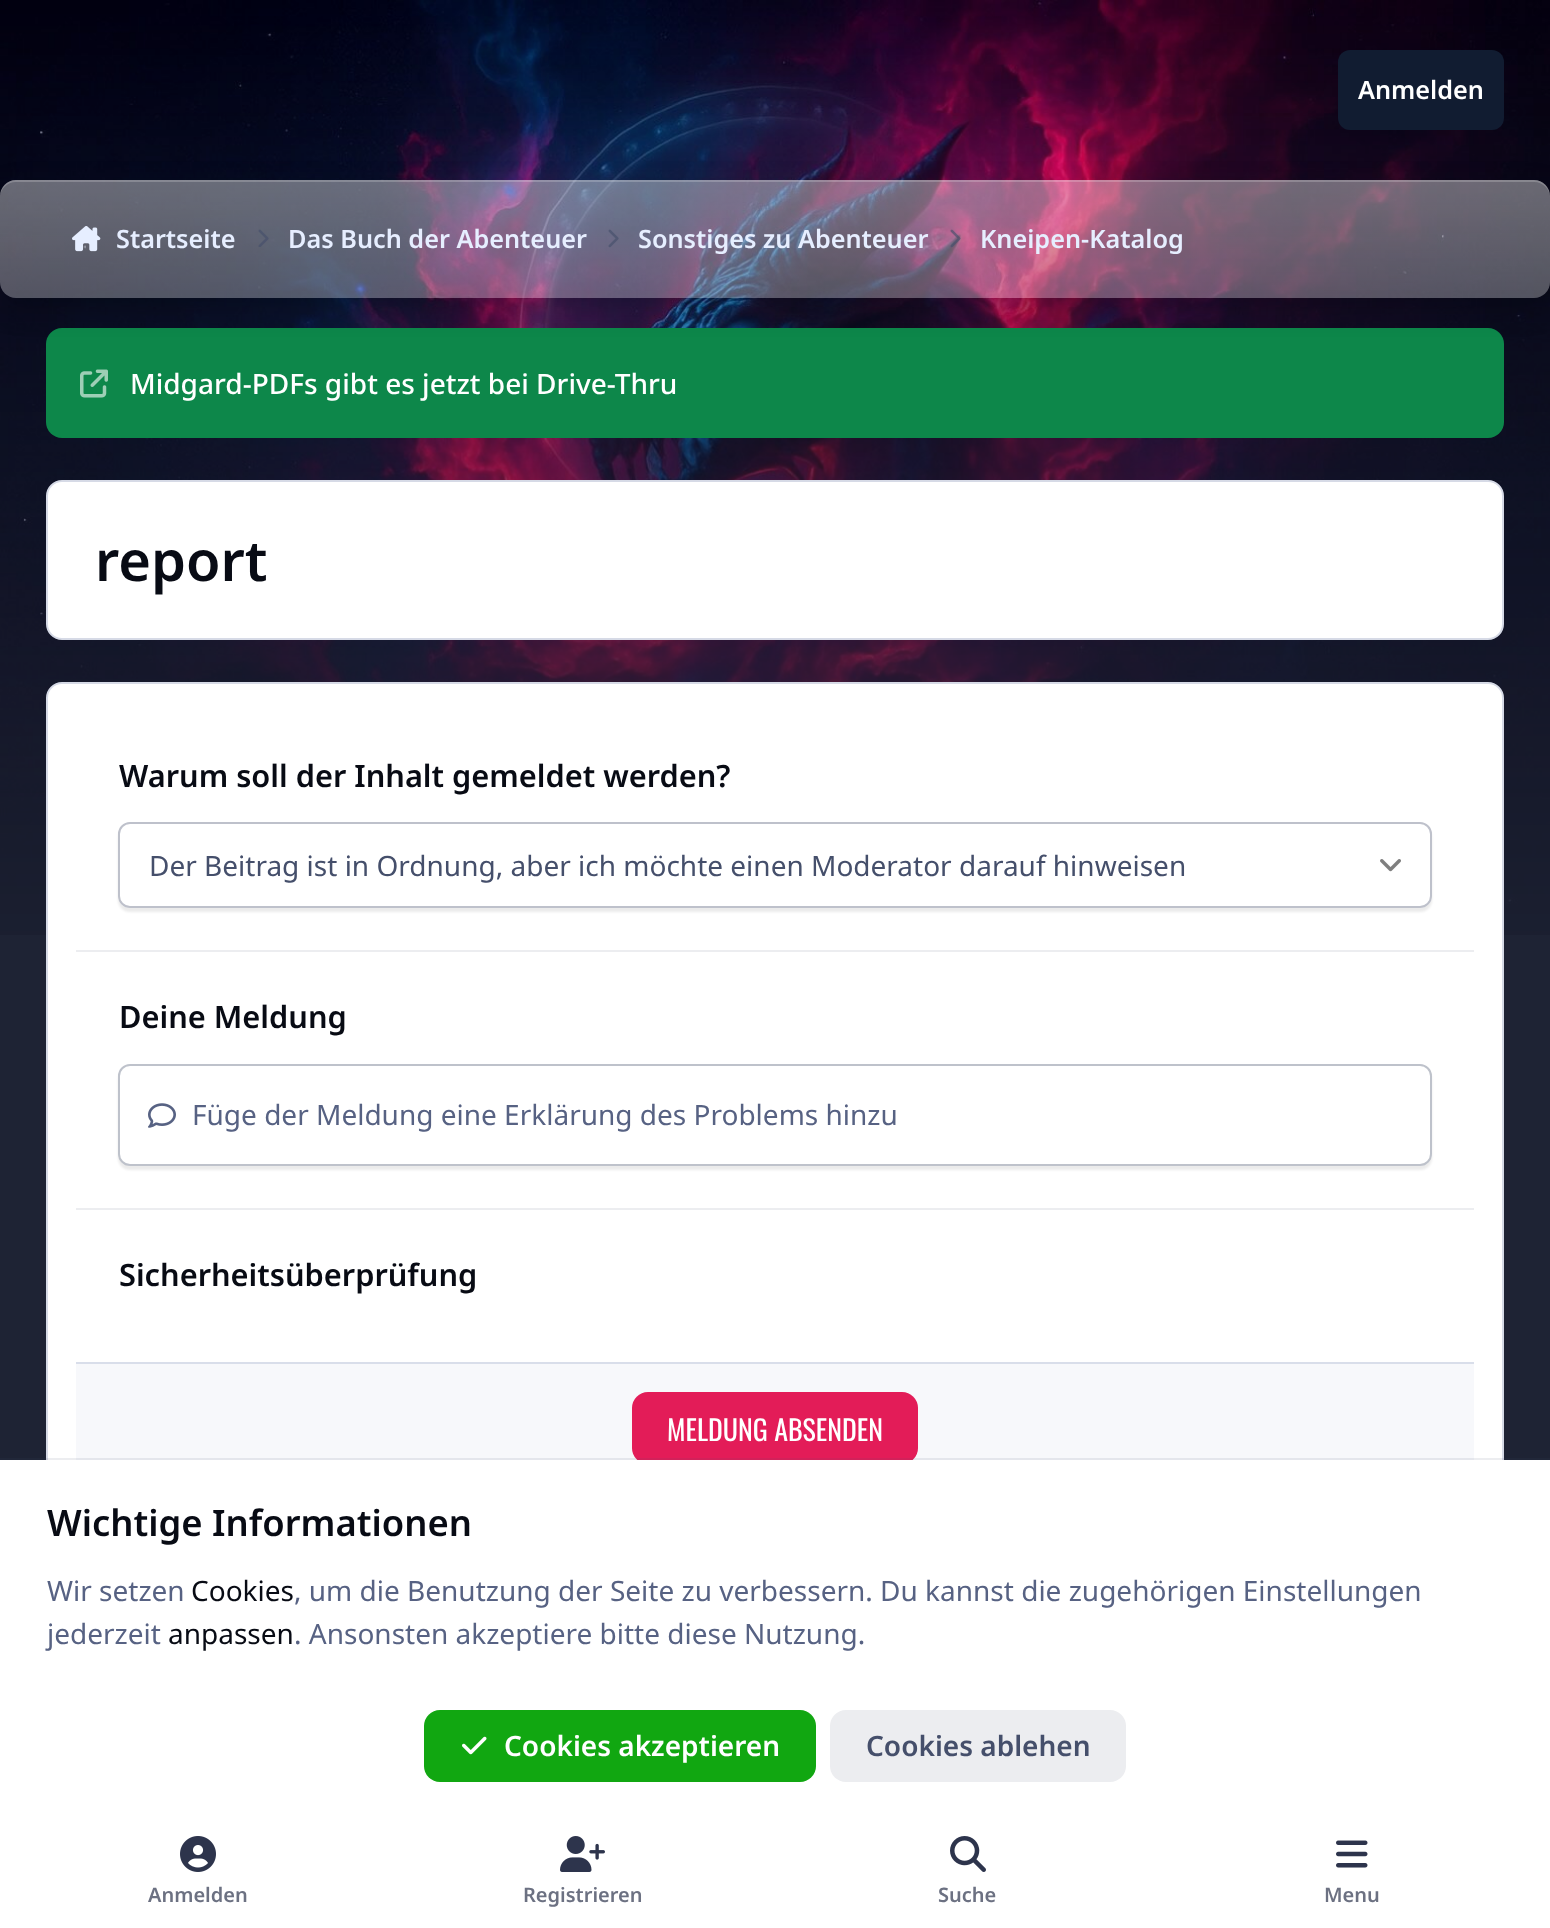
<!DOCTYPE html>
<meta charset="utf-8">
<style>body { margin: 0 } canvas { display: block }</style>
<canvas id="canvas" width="1550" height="1928"></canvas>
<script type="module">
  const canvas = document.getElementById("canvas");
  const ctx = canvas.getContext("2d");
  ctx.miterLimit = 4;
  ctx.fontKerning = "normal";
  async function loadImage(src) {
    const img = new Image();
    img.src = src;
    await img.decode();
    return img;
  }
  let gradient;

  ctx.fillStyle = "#1e2334";
  ctx.fillRect(0, 0, 1550, 1928);
  ctx.drawImage(await loadImage("img1.png"), 0, 0, 1550, 935);
  ctx.fillStyle = "#111c31";
  ctx.beginPath();
  ctx.roundRect(1338, 50, 166, 80, 12);
  ctx.fill();
  ctx.font = "600 25.25px Noto Sans";
  ctx.fillStyle = "#ffffff";
  ctx.fillText("Anmelden", 1358, 99);
  ctx.fillStyle = "#0d874a";
  ctx.beginPath();
  ctx.roundRect(46, 328, 1458, 110, 16);
  ctx.fill();
  ctx.save();
  ctx.beginPath();
  ctx.moveTo(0, 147);
  ctx.lineTo(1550, 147);
  ctx.lineTo(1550, 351);
  ctx.lineTo(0, 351);
  ctx.closePath();
  ctx.moveTo(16, 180);
  ctx.lineTo(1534, 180);
  ctx.bezierCurveTo(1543, 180, 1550, 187, 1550, 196);
  ctx.lineTo(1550, 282);
  ctx.bezierCurveTo(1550, 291, 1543, 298, 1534, 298);
  ctx.lineTo(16, 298);
  ctx.bezierCurveTo(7, 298, 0, 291, 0, 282);
  ctx.lineTo(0, 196);
  ctx.bezierCurveTo(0, 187, 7, 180, 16, 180);
  ctx.closePath();
  ctx.clip("evenodd");
  ctx.fillStyle = "rgba(0, 0, 0, 0.2)";
  ctx.filter = "blur(14px)";
  ctx.beginPath();
  ctx.roundRect(0, 190, 1550, 118, 16);
  ctx.fill();
  ctx.filter = "none";
  ctx.restore();
  gradient = ctx.createLinearGradient(775, 180, 775, 298);
  gradient.addColorStop(0, "rgba(255, 255, 255, 0.4)");
  gradient.addColorStop(1, "rgba(255, 255, 255, 0.3)");
  ctx.fillStyle = gradient;
  ctx.beginPath();
  ctx.roundRect(0, 180, 1550, 118, 16);
  ctx.fill();
  ctx.fillStyle = "rgba(255, 255, 255, 0.2)";
  ctx.beginPath();
  ctx.moveTo(16, 182);
  ctx.lineTo(1534, 182);
  ctx.bezierCurveTo(1543, 182, 1550, 189, 1550, 198);
  ctx.bezierCurveTo(1550, 188, 1544, 180, 1534, 180);
  ctx.lineTo(16, 180);
  ctx.bezierCurveTo(6, 180, 0, 188, 0, 198);
  ctx.bezierCurveTo(0, 189, 7, 182, 16, 182);
  ctx.closePath();
  ctx.fill();
  ctx.drawImage(await loadImage("img2.png"), 72, 226, 29, 26);
  ctx.fillStyle = "#e6eeff";
  ctx.fillText("Startseite", 116, 248);
  ctx.drawImage(await loadImage("img3.png"), 258, 229, 11, 18);
  ctx.fillText("Das Buch der Abenteuer", 288, 248);
  ctx.drawImage(await loadImage("img4.png"), 608, 229, 11, 19);
  ctx.fillText("Sonstiges zu Abenteuer", 638, 248);
  ctx.drawImage(await loadImage("img5.png"), 950, 229, 11, 19);
  ctx.fillText("Kneipen-Katalog", 980, 248);
  ctx.drawImage(await loadImage("img6.png"), 80, 369, 28, 29);
  ctx.font = "500 28px Noto Sans";
  ctx.fillStyle = "#ffffff";
  ctx.fillText("Midgard-PDFs gibt es jetzt bei Drive-Thru", 130, 394);
  ctx.beginPath();
  ctx.roundRect(47, 481, 1456, 158, 15);
  ctx.fill();
  ctx.strokeStyle = "#d6dae6";
  ctx.lineWidth = 2;
  ctx.stroke();
  ctx.font = "600 56px Noto Sans";
  ctx.fillStyle = "#080b14";
  ctx.fillText("report", 95, 581);
  ctx.fillStyle = "#ffffff";
  ctx.beginPath();
  ctx.roundRect(47, 683, 1456, 838, 15);
  ctx.fill();
  ctx.stroke();
  ctx.fillStyle = "#ecedf0";
  ctx.fillRect(76, 950, 1398, 2);
  ctx.font = "600 30.75px Noto Sans";
  ctx.fillStyle = "#080b14";
  ctx.fillText("Warum soll der Inhalt gemeldet werden?", 119, 787);
  ctx.fillStyle = "rgba(0, 0, 0, 0.08)";
  ctx.filter = "blur(1px)";
  ctx.beginPath();
  ctx.roundRect(118, 826, 1314, 86, 12);
  ctx.fill();
  ctx.filter = "none";
  ctx.fillStyle = "#ffffff";
  ctx.beginPath();
  ctx.roundRect(118, 822, 1314, 86, 12);
  ctx.fill();
  ctx.drawImage(await loadImage("img7.png"), 1380, 859, 21, 13);
  ctx.beginPath();
  ctx.roundRect(119, 823, 1312, 84, 11);
  ctx.strokeStyle = "#bec1cb";
  ctx.stroke();
  ctx.font = "28px Noto Sans";
  ctx.fillStyle = "#454f6b";
  ctx.fillText("Der Beitrag ist in Ordnung, aber ich möchte einen Moderator darauf hinweisen", 149, 876);
  ctx.fillStyle = "#ecedf0";
  ctx.fillRect(76, 1208, 1398, 2);
  ctx.font = "600 30.75px Noto Sans";
  ctx.fillStyle = "#080b14";
  ctx.fillText("Deine Meldung", 119, 1028);
  ctx.save();
  ctx.beginPath();
  ctx.moveTo(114, 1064);
  ctx.lineTo(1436, 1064);
  ctx.lineTo(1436, 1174);
  ctx.lineTo(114, 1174);
  ctx.closePath();
  ctx.moveTo(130, 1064);
  ctx.lineTo(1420, 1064);
  ctx.bezierCurveTo(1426.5, 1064, 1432, 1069.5, 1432, 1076);
  ctx.lineTo(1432, 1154);
  ctx.bezierCurveTo(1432, 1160.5, 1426.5, 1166, 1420, 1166);
  ctx.lineTo(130, 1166);
  ctx.bezierCurveTo(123.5, 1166, 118, 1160.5, 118, 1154);
  ctx.lineTo(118, 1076);
  ctx.bezierCurveTo(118, 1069.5, 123.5, 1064, 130, 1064);
  ctx.closePath();
  ctx.clip("evenodd");
  ctx.fillStyle = "rgba(0, 0, 0, 0.08)";
  ctx.filter = "blur(1px)";
  ctx.beginPath();
  ctx.roundRect(118, 1068, 1314, 102, 12);
  ctx.fill();
  ctx.filter = "none";
  ctx.restore();
  ctx.beginPath();
  ctx.roundRect(119, 1065, 1312, 100, 11);
  ctx.strokeStyle = "rgba(69, 79, 107, 0.35)";
  ctx.stroke();
  ctx.drawImage(await loadImage("img8.png"), 148, 1103, 28, 25);
  ctx.font = "28px Noto Sans";
  ctx.fillStyle = "#576283";
  ctx.fillText("Füge der Meldung eine Erklärung des Problems hinzu", 192, 1125);
  ctx.font = "600 30.75px Noto Sans";
  ctx.fillStyle = "#080b14";
  ctx.fillText("Sicherheitsüberprüfung", 119, 1286);
  ctx.fillStyle = "#f7f8fb";
  ctx.fillRect(76, 1364, 1398, 96);
  ctx.fillStyle = "#d9deea";
  ctx.fillRect(76, 1362, 1398, 2);
  ctx.fillStyle = "#e31c58";
  ctx.beginPath();
  ctx.roundRect(632, 1392, 286, 72, 16);
  ctx.fill();
  ctx.font = "28px Oswald";
  ctx.fillStyle = "#ffffff";
  ctx.fillText("MELDUNG ABSENDEN", 667, 1441);
  ctx.fillStyle = "rgba(69, 79, 107, 0.1)";
  ctx.fillRect(0, 1458, 1550, 2);
  ctx.fillStyle = "#ffffff";
  ctx.fillRect(0, 1460, 1550, 468);
  ctx.font = "600 36.4px Noto Sans";
  ctx.fillStyle = "#080b14";
  ctx.fillText("Wichtige Informationen", 47, 1536);
  ctx.font = "28px Noto Sans";
  ctx.fillStyle = "#576283";
  ctx.fillText("Wir setzen", 47, 1601);
  ctx.fillStyle = "#080b14";
  ctx.fillText("Cookies", 191, 1601);
  ctx.fillStyle = "#576283";
  ctx.fillText(", um die Benutzung der Seite zu verbessern. Du kannst die zugehörigen Einstellungen", 294, 1601);
  ctx.fillText("jederzeit", 47, 1644);
  ctx.fillStyle = "#080b14";
  ctx.fillText("anpassen", 168, 1644);
  ctx.fillStyle = "#576283";
  ctx.fillText(". Ansonsten akzeptiere bitte diese Nutzung.", 294, 1644);
  ctx.fillStyle = "#11a711";
  ctx.beginPath();
  ctx.roundRect(424, 1710, 392, 72, 16);
  ctx.fill();
  ctx.drawImage(await loadImage("img9.png"), 462, 1736, 25, 19);
  ctx.font = "600 28px Noto Sans";
  ctx.fillStyle = "#ffffff";
  ctx.fillText("Cookies akzeptieren", 504, 1756);
  ctx.fillStyle = "#ecedf0";
  ctx.beginPath();
  ctx.roundRect(830, 1710, 296, 72, 16);
  ctx.fill();
  ctx.fillStyle = "#454f6b";
  ctx.fillText("Cookies ablehen", 866, 1756);
  ctx.drawImage(await loadImage("img10.png"), 180, 1836, 36, 36);
  ctx.font = "600 20px Noto Sans";
  ctx.fillStyle = "#6c7182";
  ctx.fillText("Anmelden", 148, 1902);
  ctx.drawImage(await loadImage("img11.png"), 560, 1836, 45, 36);
  ctx.fillText("Registrieren", 523, 1902);
  ctx.drawImage(await loadImage("img12.png"), 950, 1836, 36, 36);
  ctx.fillText("Suche", 938, 1902);
  ctx.drawImage(await loadImage("img13.png"), 1336, 1840, 32, 28);
  ctx.fillText("Menu", 1324, 1902);
</script>
